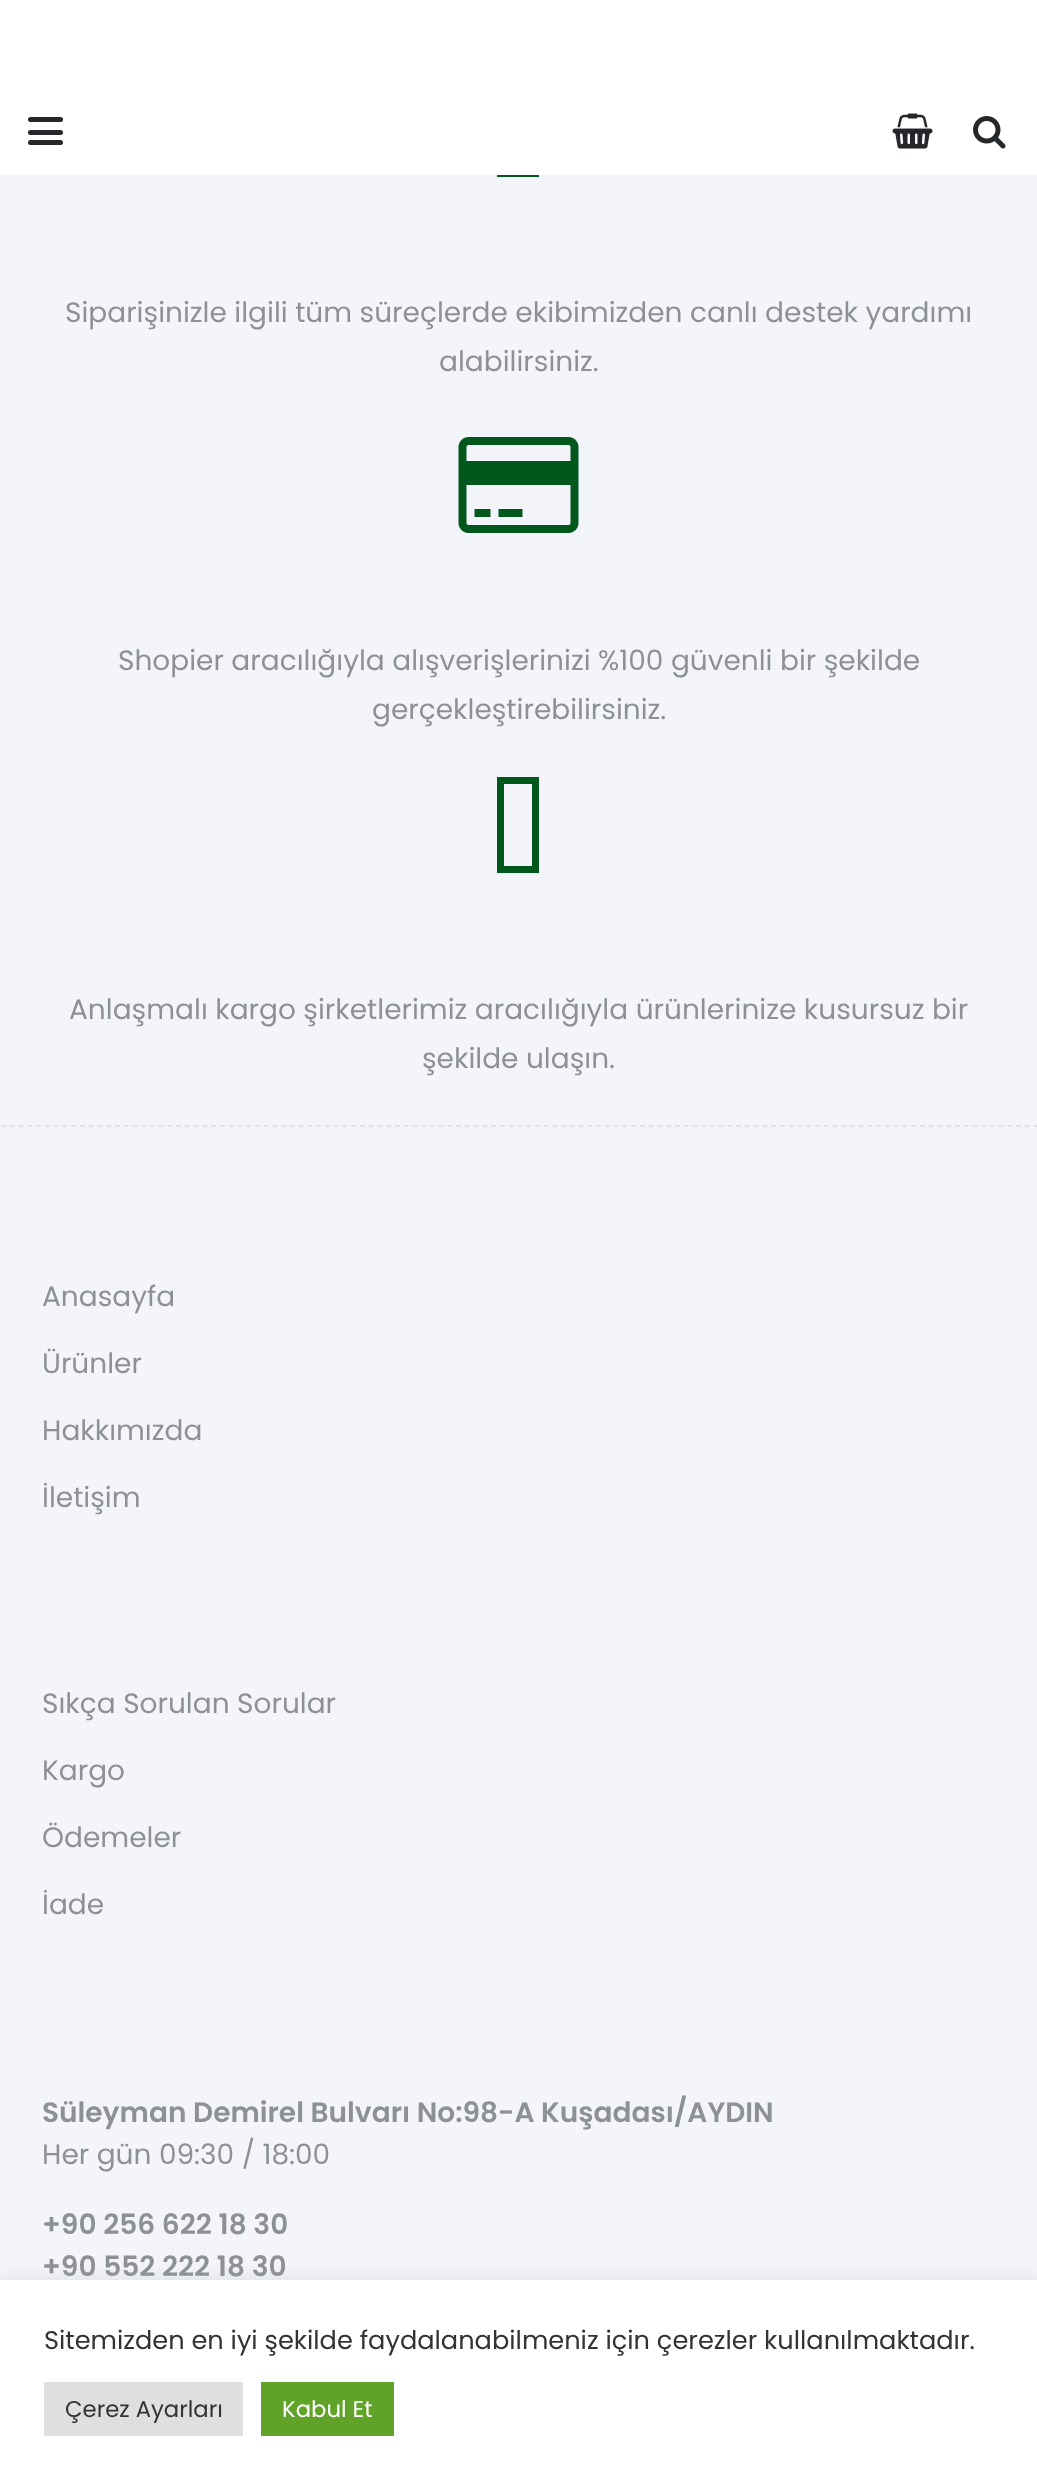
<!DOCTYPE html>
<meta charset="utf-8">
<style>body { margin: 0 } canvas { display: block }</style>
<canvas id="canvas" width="1037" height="2488"></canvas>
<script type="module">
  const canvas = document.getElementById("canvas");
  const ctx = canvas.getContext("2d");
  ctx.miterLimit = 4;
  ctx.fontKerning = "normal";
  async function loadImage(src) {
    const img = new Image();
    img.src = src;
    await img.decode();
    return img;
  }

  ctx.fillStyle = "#f3f5fb";
  ctx.fillRect(0, 0, 1037, 2488);
  ctx.fillStyle = "#00581d";
  ctx.beginPath();
  ctx.moveTo(504, 170);
  ctx.lineTo(504, 88);
  ctx.lineTo(532, 88);
  ctx.lineTo(532, 170);
  ctx.closePath();
  ctx.moveTo(497, 177);
  ctx.lineTo(539, 177);
  ctx.lineTo(539, 81);
  ctx.lineTo(497, 81);
  ctx.closePath();
  ctx.fill();
  ctx.fillStyle = "#ffffff";
  ctx.fillRect(0, 0, 1037, 175);
  ctx.fillStyle = "#25282b";
  ctx.beginPath();
  ctx.roundRect(28, 130, 35, 5, 2.5);
  ctx.fill();
  ctx.beginPath();
  ctx.roundRect(28, 117, 35, 5, 2.5);
  ctx.fill();
  ctx.beginPath();
  ctx.roundRect(28, 140, 35, 5, 2.5);
  ctx.fill();
  ctx.drawImage(await loadImage("img1.png"), 892, 113, 41, 36);
  ctx.drawImage(await loadImage("img2.png"), 973, 116, 33, 33);
  ctx.font = "28px Poppins";
  ctx.fillStyle = "#8e9194";
  ctx.fillText("Siparişinizle ilgili tüm süreçlerde ekibimizden canlı destek yardımı", 65, 322);
  ctx.fillText("alabilirsiniz.", 439, 371);
  ctx.drawImage(await loadImage("img3.png"), 458, 437, 121, 96);
  ctx.fillText("Shopier aracılığıyla alışverişlerinizi %100 güvenli bir şekilde", 118, 670);
  ctx.fillText("gerçekleştirebilirsiniz.", 372, 719);
  ctx.fillStyle = "#00581d";
  ctx.beginPath();
  ctx.moveTo(504, 866);
  ctx.lineTo(504, 784);
  ctx.lineTo(532, 784);
  ctx.lineTo(532, 866);
  ctx.closePath();
  ctx.moveTo(497, 873);
  ctx.lineTo(539, 873);
  ctx.lineTo(539, 777);
  ctx.lineTo(497, 777);
  ctx.closePath();
  ctx.fill();
  ctx.fillStyle = "#8e9194";
  ctx.fillText("Anlaşmalı kargo şirketlerimiz aracılığıyla ürünlerinize kusursuz bir", 69, 1019);
  ctx.fillText("şekilde ulaşın.", 422, 1068);
  ctx.beginPath();
  ctx.moveTo(1, 1126);
  ctx.lineTo(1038.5, 1126);
  ctx.strokeStyle = "#dfe2e6";
  ctx.lineWidth = 1.8;
  ctx.setLineDash([5.25, 3.5]);
  ctx.stroke();
  ctx.fillText("Anasayfa", 42, 1306);
  ctx.fillText("Ürünler", 42, 1373);
  ctx.fillText("Hakkımızda", 42, 1440);
  ctx.fillText("İletişim", 42, 1507);
  ctx.fillText("Sıkça Sorulan Sorular", 42, 1713);
  ctx.fillText("Kargo", 42, 1780);
  ctx.fillText("Ödemeler", 42, 1847);
  ctx.fillText("İade", 42, 1914);
  ctx.font = "600 28px Poppins";
  ctx.fillText("Süleyman Demirel Bulvarı No:98-A Kuşadası/AYDIN", 42, 2122);
  ctx.font = "28px Poppins";
  ctx.fillText("Her gün 09:30 / 18:00", 42, 2164);
  ctx.font = "600 28px Poppins";
  ctx.fillText("+90 256 622 18 30", 42, 2234);
  ctx.fillText("+90 552 222 18 30", 42, 2276);
  ctx.fillStyle = "rgba(172, 171, 171, 0.3)";
  ctx.filter = "blur(9px)";
  ctx.beginPath();
  ctx.rect(0, 2279, 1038, 208);
  ctx.fill();
  ctx.filter = "none";
  ctx.fillStyle = "#ffffff";
  ctx.fillRect(0, 2280, 1037, 208);
  ctx.font = "25.65px Poppins";
  ctx.fillStyle = "#333333";
  ctx.fillText("Sitemizden en iyi şekilde faydalanabilmeniz için çerezler kullanılmaktadır.", 44, 2349);
  ctx.fillStyle = "#dedfe0";
  ctx.fillRect(44, 2382, 199, 54);
  ctx.font = "22.75px Poppins";
  ctx.fillStyle = "#333333";
  ctx.fillText("Çerez Ayarları", 65, 2417);
  ctx.fillStyle = "#61a229";
  ctx.fillRect(261, 2382, 133, 54);
  ctx.fillStyle = "#ffffff";
  ctx.fillText("Kabul Et", 282, 2417);
</script>
